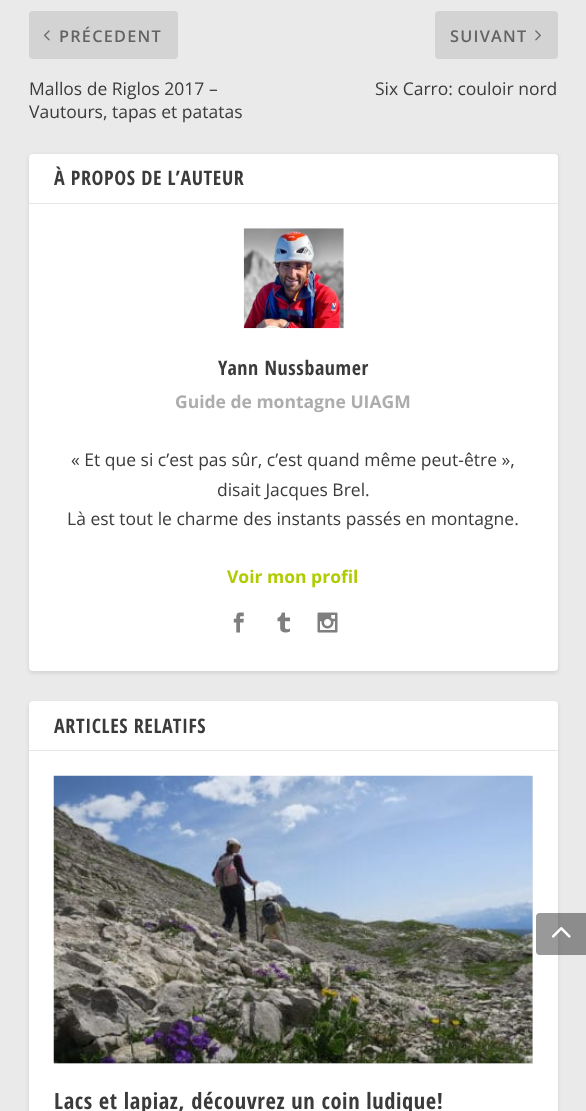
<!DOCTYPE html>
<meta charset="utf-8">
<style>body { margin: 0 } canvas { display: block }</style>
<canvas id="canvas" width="586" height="1111"></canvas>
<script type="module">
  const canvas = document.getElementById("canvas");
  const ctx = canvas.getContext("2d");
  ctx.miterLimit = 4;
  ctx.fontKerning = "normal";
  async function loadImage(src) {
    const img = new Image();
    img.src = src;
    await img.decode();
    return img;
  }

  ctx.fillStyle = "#eaeaea";
  ctx.fillRect(0, 0, 586, 1111);
  ctx.fillStyle = "#d3d3d3";
  ctx.beginPath();
  ctx.roundRect(29, 11, 149, 48, 4);
  ctx.fill();
  ctx.drawImage(await loadImage("img1.png"), 44, 30, 6, 11);
  ctx.letterSpacing = "1.25px";
  ctx.font = "600 16.25px Open Sans";
  ctx.fillStyle = "#636363";
  ctx.fillText("PRÉCEDENT", 59, 42);
  ctx.letterSpacing = "0px";
  ctx.font = "17.5px Open Sans";
  ctx.fillStyle = "#3b3b3b";
  ctx.fillText("Mallos de Riglos 2017 –", 29, 95);
  ctx.fillText("Vautours, tapas et patatas", 29, 118);
  ctx.fillStyle = "#d3d3d3";
  ctx.beginPath();
  ctx.roundRect(435, 11, 123, 48, 4);
  ctx.fill();
  ctx.letterSpacing = "1.25px";
  ctx.font = "600 16.25px Open Sans";
  ctx.fillStyle = "#636363";
  ctx.fillText("SUIVANT", 450, 42);
  ctx.drawImage(await loadImage("img2.png"), 535, 30, 6, 11);
  ctx.letterSpacing = "0px";
  ctx.font = "17.5px Open Sans";
  ctx.fillStyle = "#3b3b3b";
  ctx.fillText("Six Carro: couloir nord", 375, 95);
  ctx.fillStyle = "rgba(0, 0, 0, 0.1)";
  ctx.filter = "blur(2px)";
  ctx.beginPath();
  ctx.roundRect(29, 155, 529, 518, 4);
  ctx.fill();
  ctx.filter = "none";
  ctx.fillStyle = "#ffffff";
  ctx.beginPath();
  ctx.roundRect(29, 154, 529, 517, 4);
  ctx.fill();
  ctx.fillStyle = "#e6e6e6";
  ctx.fillRect(29, 203, 529, 1);
  ctx.letterSpacing = "0.6px";
  ctx.font = "bold 20px Open Sans Condensed";
  ctx.fillStyle = "#3b3b3b";
  ctx.fillText("À PROPOS DE L’AUTEUR", 54, 185);
  ctx.drawImage(await loadImage("img3.png"), 243, 228, 101, 101);
  ctx.fillText("Yann Nussbaumer", 218, 375);
  ctx.letterSpacing = "0px";
  ctx.font = "bold 17.5px Open Sans";
  ctx.fillStyle = "#adadad";
  ctx.fillText("Guide de montagne UIAGM", 175, 408);
  ctx.font = "17.5px Open Sans";
  ctx.fillStyle = "#3b3b3b";
  ctx.fillText("« Et que si c’est pas sûr, c’est quand même peut-être »,", 71, 466);
  ctx.fillText("disait Jacques Brel.", 217, 496);
  ctx.fillText("Là est tout le charme des instants passés en montagne.", 67, 525);
  ctx.font = "bold 17.5px Open Sans";
  ctx.fillStyle = "#b0cc00";
  ctx.fillText("Voir mon profil", 227, 583);
  ctx.drawImage(await loadImage("img4.png"), 233, 612, 11, 21);
  ctx.drawImage(await loadImage("img5.png"), 277, 612, 13, 21);
  ctx.drawImage(await loadImage("img6.png"), 317, 612, 21, 21);
  ctx.fillStyle = "rgba(0, 0, 0, 0.1)";
  ctx.filter = "blur(2px)";
  ctx.beginPath();
  ctx.roundRect(29, 703, 529, 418, 4);
  ctx.fill();
  ctx.filter = "none";
  ctx.fillStyle = "#ffffff";
  ctx.beginPath();
  ctx.roundRect(29, 701, 529, 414, 4);
  ctx.fill();
  ctx.fillStyle = "#e6e6e6";
  ctx.fillRect(29, 750, 529, 1);
  ctx.letterSpacing = "0.6px";
  ctx.font = "bold 20px Open Sans Condensed";
  ctx.fillStyle = "#3b3b3b";
  ctx.fillText("ARTICLES RELATIFS", 54, 733);
  ctx.fillStyle = "#e6e6e6";
  ctx.fillRect(54, 776, 479, 288);
  ctx.drawImage(await loadImage("img7.png"), 53, 775, 480, 289);
  ctx.font = "bold 22.5px Open Sans Condensed";
  ctx.fillStyle = "#3b3b3b";
  ctx.fillText("Lacs et lapiaz, découvrez un coin ludique!", 54, 1109);
  ctx.fillStyle = "rgba(0, 0, 0, 0.4)";
  ctx.beginPath();
  ctx.roundRect(536, 913, 50, 42, [4, 0, 0, 4]);
  ctx.fill();
  ctx.drawImage(await loadImage("img8.png"), 551, 927, 20, 11);
</script>
